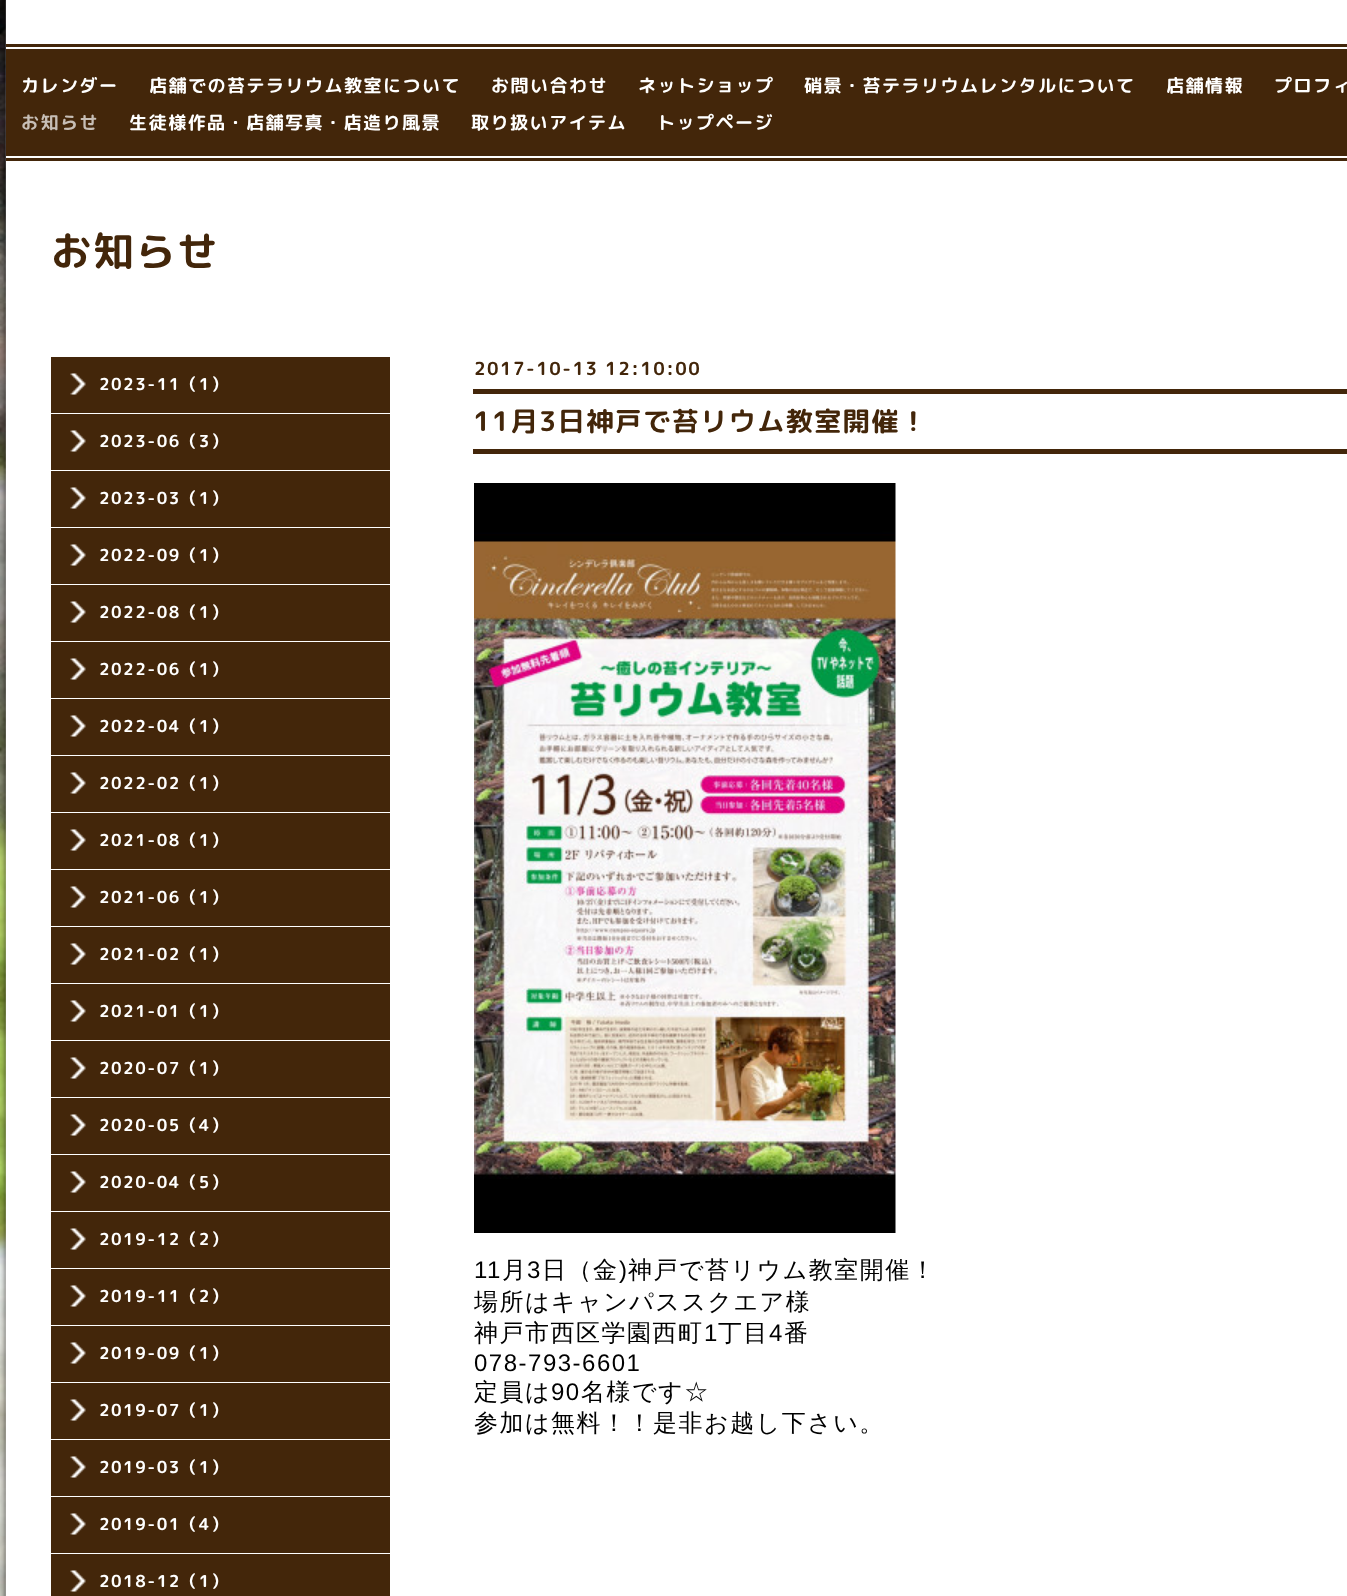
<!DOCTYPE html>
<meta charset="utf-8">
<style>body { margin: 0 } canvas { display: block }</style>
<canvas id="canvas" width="1347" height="1596"></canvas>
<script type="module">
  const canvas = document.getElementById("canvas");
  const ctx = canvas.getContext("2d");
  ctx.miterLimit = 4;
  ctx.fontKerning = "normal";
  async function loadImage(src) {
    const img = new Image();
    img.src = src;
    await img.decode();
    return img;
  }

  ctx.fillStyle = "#ffffff";
  ctx.fillRect(0, 0, 1347, 1596);
  ctx.drawImage(await loadImage("img1.png"), 0, 0, 6, 1596);
  ctx.drawImage(await loadImage("img2.png"), 0, 0, 6, 1596);
  ctx.fillStyle = "#43260a";
  ctx.fillRect(6, 44, 1341, 117);
  ctx.fillStyle = "#ffffff";
  ctx.fillRect(6, 47, 1341, 2);
  ctx.letterSpacing = "1.5px";
  ctx.font = "bold 18px 'Rounded Mplus 1c Bold'";
  ctx.fillText("カレンダー", 21, 92);
  ctx.fillText("店舗での苔テラリウム教室について", 149, 92);
  ctx.fillText("お問い合わせ", 491, 92);
  ctx.fillText("ネットショップ", 638, 92);
  ctx.fillText("硝景・苔テラリウムレンタルについて", 804, 92);
  ctx.fillText("店舗情報", 1166, 92);
  ctx.fillText("プロフィ", 1274, 92);
  ctx.fillStyle = "#c7beb6";
  ctx.fillText("お知らせ", 21, 129);
  ctx.fillStyle = "#ffffff";
  ctx.fillText("生徒様作品・店舗写真・店造り風景", 129, 129);
  ctx.fillText("取り扱いアイテム", 471, 129);
  ctx.fillText("トップページ", 657, 129);
  ctx.fillRect(6, 156, 1341, 2);
  ctx.font = "bold 40.5px 'Rounded Mplus 1c Bold'";
  ctx.fillStyle = "#43260a";
  ctx.fillText("お知らせ", 51, 266);
  ctx.font = "bold 18px 'Rounded Mplus 1c Bold'";
  ctx.fillText("2017-10-13 12:10:00", 474, 375);
  ctx.fillRect(473, 389, 874, 5);
  ctx.font = "bold 27px 'Rounded Mplus 1c Bold'";
  ctx.fillText("11月3日神戸で苔リウム教室開催！", 473, 431);
  ctx.fillRect(473, 449, 874, 5);
  ctx.drawImage(await loadImage("img3.png"), 474, 483, 422, 750);
  ctx.font = "24px Liberation Sans";
  ctx.fillStyle = "#000000";
  ctx.fillText("11", 474, 1278);
  ctx.font = "500 24px WenQuanYi Zen Hei";
  ctx.fillText("月", 502, 1278);
  ctx.font = "24px Liberation Sans";
  ctx.fillText("3", 527, 1278);
  ctx.font = "500 24px WenQuanYi Zen Hei";
  ctx.fillText("日（金", 542, 1278);
  ctx.font = "24px Liberation Sans";
  ctx.fillText(")", 619, 1278);
  ctx.font = "500 24px WenQuanYi Zen Hei";
  ctx.fillText("神戸で苔リウム教室開催！", 628, 1278);
  ctx.fillText("場所はキャンパススクエア様", 474, 1310);
  ctx.fillText("神戸市西区学園西町", 474, 1341);
  ctx.font = "24px Liberation Sans";
  ctx.fillText("1", 704, 1341);
  ctx.font = "500 24px WenQuanYi Zen Hei";
  ctx.fillText("丁目", 718, 1341);
  ctx.font = "24px Liberation Sans";
  ctx.fillText("4", 769, 1341);
  ctx.font = "500 24px WenQuanYi Zen Hei";
  ctx.fillText("番", 784, 1341);
  ctx.font = "24px Liberation Sans";
  ctx.fillText("078-793-6601", 474, 1371);
  ctx.font = "500 24px WenQuanYi Zen Hei";
  ctx.fillText("定員は", 474, 1400);
  ctx.font = "24px Liberation Sans";
  ctx.fillText("90", 551, 1400);
  ctx.font = "500 24px WenQuanYi Zen Hei";
  ctx.fillText("名様です☆", 581, 1400);
  ctx.fillText("参加は無料！！是非お越し下さい。", 474, 1431);
  ctx.fillStyle = "#43260a";
  ctx.fillRect(51, 357, 339, 56);
  ctx.drawImage(await loadImage("img4.png"), 70, 373, 16, 22);
  ctx.font = "bold 16.5px 'Rounded Mplus 1c Bold'";
  ctx.fillStyle = "#ffffff";
  ctx.fillText("2023-11（1）", 99, 390);
  ctx.fillStyle = "#43260a";
  ctx.fillRect(51, 414, 339, 56);
  ctx.drawImage(await loadImage("img4.png"), 70, 430, 16, 22);
  ctx.fillStyle = "#ffffff";
  ctx.fillText("2023-06（3）", 99, 447);
  ctx.fillStyle = "#43260a";
  ctx.fillRect(51, 471, 339, 56);
  ctx.drawImage(await loadImage("img4.png"), 70, 487, 16, 22);
  ctx.fillStyle = "#ffffff";
  ctx.fillText("2023-03（1）", 99, 504);
  ctx.fillStyle = "#43260a";
  ctx.fillRect(51, 528, 339, 56);
  ctx.drawImage(await loadImage("img4.png"), 70, 544, 16, 22);
  ctx.fillStyle = "#ffffff";
  ctx.fillText("2022-09（1）", 99, 561);
  ctx.fillStyle = "#43260a";
  ctx.fillRect(51, 585, 339, 56);
  ctx.drawImage(await loadImage("img4.png"), 70, 601, 16, 22);
  ctx.fillStyle = "#ffffff";
  ctx.fillText("2022-08（1）", 99, 618);
  ctx.fillStyle = "#43260a";
  ctx.fillRect(51, 642, 339, 56);
  ctx.drawImage(await loadImage("img4.png"), 70, 658, 16, 22);
  ctx.fillStyle = "#ffffff";
  ctx.fillText("2022-06（1）", 99, 675);
  ctx.fillStyle = "#43260a";
  ctx.fillRect(51, 699, 339, 56);
  ctx.drawImage(await loadImage("img4.png"), 70, 715, 16, 22);
  ctx.fillStyle = "#ffffff";
  ctx.fillText("2022-04（1）", 99, 732);
  ctx.fillStyle = "#43260a";
  ctx.fillRect(51, 756, 339, 56);
  ctx.drawImage(await loadImage("img4.png"), 70, 772, 16, 22);
  ctx.fillStyle = "#ffffff";
  ctx.fillText("2022-02（1）", 99, 789);
  ctx.fillStyle = "#43260a";
  ctx.fillRect(51, 813, 339, 56);
  ctx.drawImage(await loadImage("img4.png"), 70, 829, 16, 22);
  ctx.fillStyle = "#ffffff";
  ctx.fillText("2021-08（1）", 99, 846);
  ctx.fillStyle = "#43260a";
  ctx.fillRect(51, 870, 339, 56);
  ctx.drawImage(await loadImage("img4.png"), 70, 886, 16, 22);
  ctx.fillStyle = "#ffffff";
  ctx.fillText("2021-06（1）", 99, 903);
  ctx.fillStyle = "#43260a";
  ctx.fillRect(51, 927, 339, 56);
  ctx.drawImage(await loadImage("img4.png"), 70, 943, 16, 22);
  ctx.fillStyle = "#ffffff";
  ctx.fillText("2021-02（1）", 99, 960);
  ctx.fillStyle = "#43260a";
  ctx.fillRect(51, 984, 339, 56);
  ctx.drawImage(await loadImage("img4.png"), 70, 1000, 16, 22);
  ctx.fillStyle = "#ffffff";
  ctx.fillText("2021-01（1）", 99, 1017);
  ctx.fillStyle = "#43260a";
  ctx.fillRect(51, 1041, 339, 56);
  ctx.drawImage(await loadImage("img4.png"), 70, 1057, 16, 22);
  ctx.fillStyle = "#ffffff";
  ctx.fillText("2020-07（1）", 99, 1074);
  ctx.fillStyle = "#43260a";
  ctx.fillRect(51, 1098, 339, 56);
  ctx.drawImage(await loadImage("img4.png"), 70, 1114, 16, 22);
  ctx.fillStyle = "#ffffff";
  ctx.fillText("2020-05（4）", 99, 1131);
  ctx.fillStyle = "#43260a";
  ctx.fillRect(51, 1155, 339, 56);
  ctx.drawImage(await loadImage("img4.png"), 70, 1171, 16, 22);
  ctx.fillStyle = "#ffffff";
  ctx.fillText("2020-04（5）", 99, 1188);
  ctx.fillStyle = "#43260a";
  ctx.fillRect(51, 1212, 339, 56);
  ctx.drawImage(await loadImage("img4.png"), 70, 1228, 16, 22);
  ctx.fillStyle = "#ffffff";
  ctx.fillText("2019-12（2）", 99, 1245);
  ctx.fillStyle = "#43260a";
  ctx.fillRect(51, 1269, 339, 56);
  ctx.drawImage(await loadImage("img4.png"), 70, 1285, 16, 22);
  ctx.fillStyle = "#ffffff";
  ctx.fillText("2019-11（2）", 99, 1302);
  ctx.fillStyle = "#43260a";
  ctx.fillRect(51, 1326, 339, 56);
  ctx.drawImage(await loadImage("img4.png"), 70, 1342, 16, 22);
  ctx.fillStyle = "#ffffff";
  ctx.fillText("2019-09（1）", 99, 1359);
  ctx.fillStyle = "#43260a";
  ctx.fillRect(51, 1383, 339, 56);
  ctx.drawImage(await loadImage("img4.png"), 70, 1399, 16, 22);
  ctx.fillStyle = "#ffffff";
  ctx.fillText("2019-07（1）", 99, 1416);
  ctx.fillStyle = "#43260a";
  ctx.fillRect(51, 1440, 339, 56);
  ctx.drawImage(await loadImage("img4.png"), 70, 1456, 16, 22);
  ctx.fillStyle = "#ffffff";
  ctx.fillText("2019-03（1）", 99, 1473);
  ctx.fillStyle = "#43260a";
  ctx.fillRect(51, 1497, 339, 56);
  ctx.drawImage(await loadImage("img4.png"), 70, 1513, 16, 22);
  ctx.fillStyle = "#ffffff";
  ctx.fillText("2019-01（4）", 99, 1530);
  ctx.fillStyle = "#43260a";
  ctx.fillRect(51, 1554, 339, 42);
  ctx.drawImage(await loadImage("img4.png"), 70, 1570, 16, 22);
  ctx.fillStyle = "#ffffff";
  ctx.fillText("2018-12（1）", 99, 1587);
</script>
